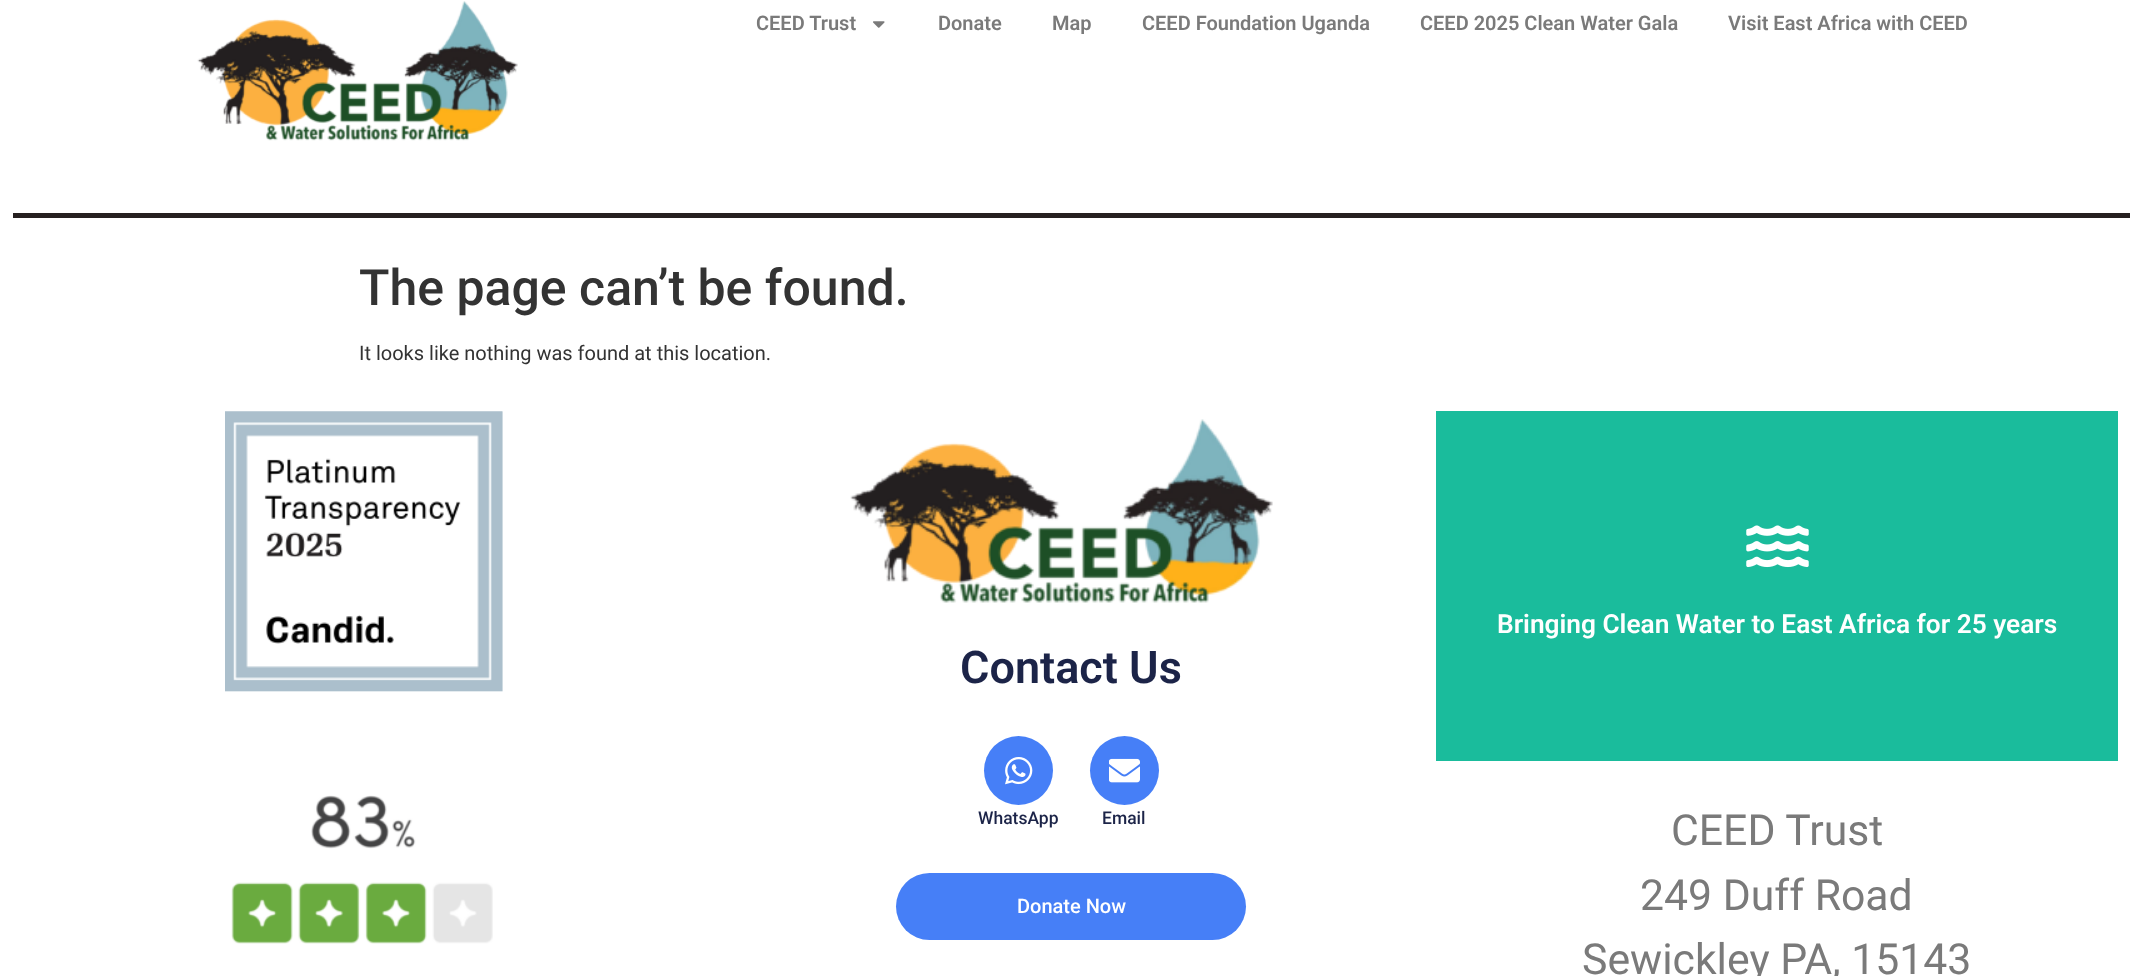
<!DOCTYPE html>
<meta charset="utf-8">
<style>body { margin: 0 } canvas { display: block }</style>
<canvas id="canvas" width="2142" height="976"></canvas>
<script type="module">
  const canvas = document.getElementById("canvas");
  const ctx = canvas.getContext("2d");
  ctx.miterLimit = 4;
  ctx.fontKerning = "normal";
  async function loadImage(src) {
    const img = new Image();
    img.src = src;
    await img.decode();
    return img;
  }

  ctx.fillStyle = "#ffffff";
  ctx.fillRect(0, 0, 2142, 976);
  ctx.drawImage(await loadImage("img1.png"), 197, 1, 321, 140);
  ctx.font = "600 20px Roboto";
  ctx.fillStyle = "#7a7a7a";
  ctx.fillText("CEED Trust", 756, 30);
  ctx.drawImage(await loadImage("img2.png"), 873, 21, 12, 7);
  ctx.fillText("Donate", 938, 30);
  ctx.fillText("Map", 1052, 30);
  ctx.fillText("CEED Foundation Uganda", 1142, 30);
  ctx.fillText("CEED 2025 Clean Water Gala", 1420, 30);
  ctx.fillText("Visit East Africa with CEED", 1728, 30);
  ctx.fillStyle = "#262020";
  ctx.fillRect(13, 213, 2117, 5);
  ctx.font = "500 50px Roboto";
  ctx.fillStyle = "#333333";
  ctx.fillText("The page can’t be found.", 359, 305);
  ctx.font = "20px Roboto";
  ctx.fillText("It looks like nothing was found at this location.", 359, 360);
  ctx.drawImage(await loadImage("img3.png"), 225, 411, 278, 281);
  ctx.drawImage(await loadImage("img4.png"), 231, 795, 262, 149);
  ctx.drawImage(await loadImage("img5.png"), 850, 419, 423, 184);
  ctx.font = "600 45px Roboto";
  ctx.fillStyle = "#1c2448";
  ctx.fillText("Contact Us", 960, 683);
  ctx.fillStyle = "#467ff7";
  ctx.beginPath();
  ctx.arc(1018.5, 770.5, 34.5, 0, Math.PI * 2);
  ctx.fill();
  ctx.drawImage(await loadImage("img6.png"), 1005, 757, 28, 28);
  ctx.font = "500 17.5px Roboto";
  ctx.fillStyle = "#1c2448";
  ctx.fillText("WhatsApp", 978, 824);
  ctx.fillStyle = "#467ff7";
  ctx.beginPath();
  ctx.arc(1124.5, 770.5, 34.5, 0, Math.PI * 2);
  ctx.fill();
  ctx.drawImage(await loadImage("img7.png"), 1109, 758, 31, 25);
  ctx.fillStyle = "#1c2448";
  ctx.fillText("Email", 1102, 824);
  ctx.fillStyle = "#467ff7";
  ctx.beginPath();
  ctx.roundRect(896, 873, 350, 67, 33.5);
  ctx.fill();
  ctx.font = "500 20px Roboto";
  ctx.fillStyle = "#ffffff";
  ctx.fillText("Donate Now", 1017, 913);
  ctx.fillStyle = "#1abc9c";
  ctx.fillRect(1436, 411, 682, 350);
  ctx.drawImage(await loadImage("img8.png"), 1746, 525, 63, 43);
  ctx.font = "600 26.25px Roboto";
  ctx.fillStyle = "#ffffff";
  ctx.fillText("Bringing Clean Water to East Africa for 25 years", 1497, 633);
  ctx.font = "42.75px Roboto";
  ctx.fillStyle = "#7a7a7a";
  ctx.fillText("CEED Trust", 1671, 845);
  ctx.fillText("249 Duff Road", 1640, 910);
  ctx.fillText("Sewickley PA, 15143", 1582, 974);
</script>
